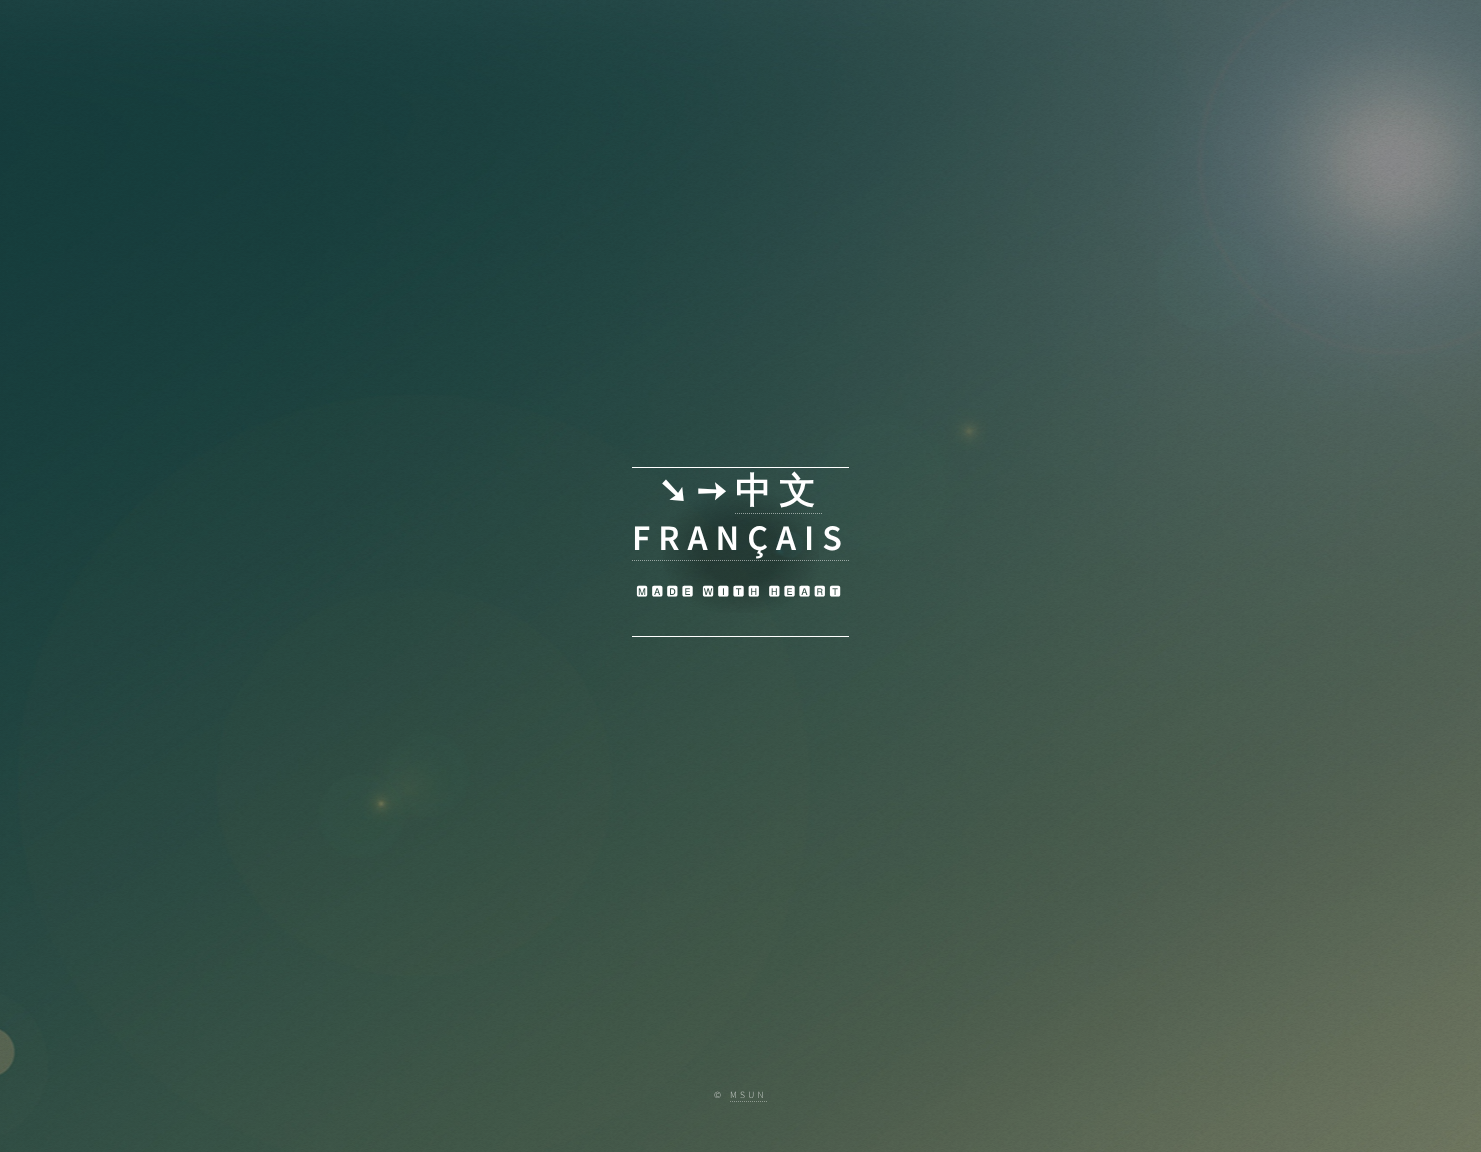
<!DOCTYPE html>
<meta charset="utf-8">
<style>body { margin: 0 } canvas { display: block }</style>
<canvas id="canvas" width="1481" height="1152"></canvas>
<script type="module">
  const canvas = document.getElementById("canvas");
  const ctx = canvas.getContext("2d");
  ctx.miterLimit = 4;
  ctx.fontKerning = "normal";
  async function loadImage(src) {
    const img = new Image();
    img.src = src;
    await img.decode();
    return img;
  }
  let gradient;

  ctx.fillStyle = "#ffffff";
  ctx.fillRect(0, 0, 1481, 1152);
  ctx.drawImage(await loadImage("img1.png"), 0, 0, 1481, 1152);
  ctx.drawImage(await loadImage("img2.png"), 0, 0, 1481, 1152);
  gradient = ctx.createRadialGradient(741, 703.8, 0, 741, 703.8, 153);
  gradient.addColorStop(0.25, "rgba(0, 0, 0, 0.25)");
  gradient.addColorStop(0.55, "rgba(0, 0, 0, 0)");
  ctx.fillStyle = gradient;
  ctx.beginPath();
  ctx.rect(663, 491, 156, 122);
  ctx.save();
  ctx.clip();
  ctx.scale(1, 120 / 153);
  ctx.fillRect(0, 0, 1481, 1469);
  ctx.restore();
  ctx.fillStyle = "#ffffff";
  ctx.fillRect(632, 467, 217, 1);
  ctx.fillRect(632, 636, 217, 1);
  ctx.letterSpacing = "8px";
  ctx.font = "bold 36px DejaVu Sans";
  ctx.fillText("➘➙", 658, 503);
  ctx.font = "bold 36px WenQuanYi Zen Hei";
  ctx.fillText("中文", 735, 503);
  ctx.beginPath();
  ctx.moveTo(735, 513.5);
  ctx.lineTo(823, 513.5);
  ctx.strokeStyle = "rgba(255, 255, 255, 0.5)";
  ctx.setLineDash([1, 1]);
  ctx.stroke();
  ctx.font = "600 36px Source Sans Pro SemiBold";
  ctx.fillText("FRANÇAIS", 632, 550);
  ctx.beginPath();
  ctx.moveTo(632, 560.5);
  ctx.lineTo(849, 560.5);
  ctx.stroke();
  ctx.letterSpacing = "3.25px";
  ctx.wordSpacing = "-1px";
  ctx.font = "12.75px FreeSans";
  ctx.fillText("🅼🅰🅳🅴 🆆🅸🆃🅷 🅷🅴🅰🆁🆃", 636, 595);
  ctx.wordSpacing = "0px";
  ctx.font = "300 9.5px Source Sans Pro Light";
  ctx.fillStyle = "#d1d5d2";
  ctx.fillText("©", 714, 1098);
  ctx.fillText("MSUN", 730, 1098);
  ctx.beginPath();
  ctx.moveTo(730, 1101.5);
  ctx.lineTo(767, 1101.5);
  ctx.strokeStyle = "rgba(255, 255, 255, 0.38)";
  ctx.stroke();
</script>
